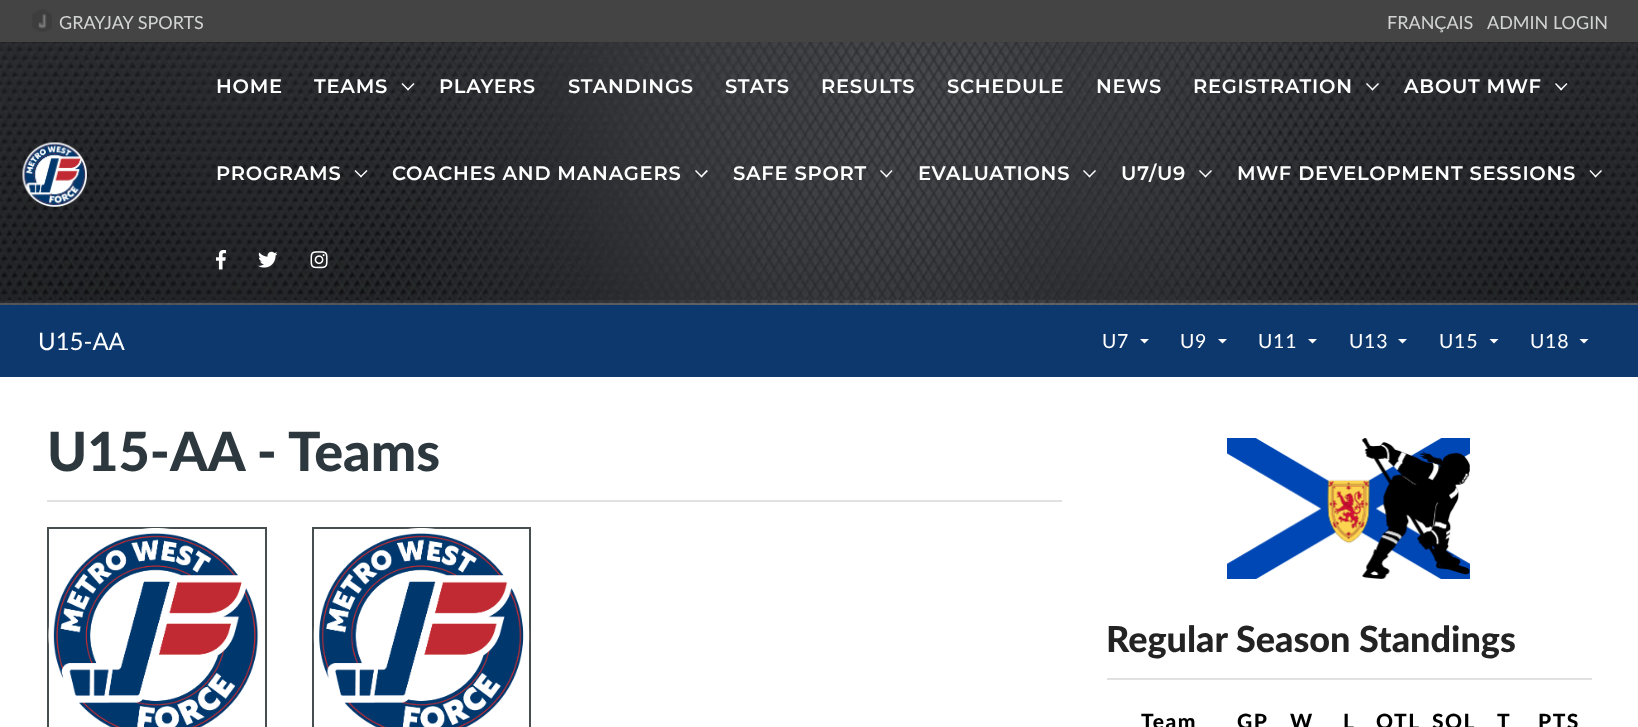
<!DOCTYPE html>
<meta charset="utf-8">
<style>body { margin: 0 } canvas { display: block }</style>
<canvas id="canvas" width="1638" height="727"></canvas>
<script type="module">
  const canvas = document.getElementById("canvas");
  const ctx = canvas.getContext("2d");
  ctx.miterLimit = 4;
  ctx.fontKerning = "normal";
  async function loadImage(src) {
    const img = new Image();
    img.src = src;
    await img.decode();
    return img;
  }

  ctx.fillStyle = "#ffffff";
  ctx.fillRect(0, 0, 1638, 727);
  ctx.fillStyle = "#444444";
  ctx.fillRect(0, 0, 1638, 42);
  ctx.drawImage(await loadImage("img1.png"), 32, 9, 20, 23);
  ctx.font = "18px Lato";
  ctx.fillStyle = "#d2d3d3";
  ctx.fillText("GRAYJAY SPORTS", 59, 29);
  ctx.fillText("FRANÇAIS", 1387, 29);
  ctx.fillText("ADMIN LOGIN", 1487, 29);
  ctx.drawImage(await loadImage("img2.png"), 0, 42, 1638, 263);
  ctx.fillStyle = "rgba(255, 255, 255, 0.2)";
  ctx.fillRect(0, 303, 1638, 2);
  ctx.drawImage(await loadImage("img3.png"), 22, 142, 65, 65);
  ctx.letterSpacing = "0.75px";
  ctx.font = "600 19.5px Montserrat";
  ctx.fillStyle = "#ffffff";
  ctx.fillText("HOME", 216, 93);
  ctx.fillText("TEAMS", 314, 93);
  ctx.beginPath();
  ctx.moveTo(413.5, 83);
  ctx.lineTo(414.5, 84);
  ctx.lineTo(408, 90.5);
  ctx.lineTo(407, 89.5);
  ctx.closePath();
  ctx.fill();
  ctx.beginPath();
  ctx.moveTo(402.5, 83);
  ctx.lineTo(409, 89.5);
  ctx.lineTo(408, 90.5);
  ctx.lineTo(401.5, 84);
  ctx.closePath();
  ctx.fill();
  ctx.fillText("PLAYERS", 439, 93);
  ctx.fillText("STANDINGS", 568, 93);
  ctx.fillText("STATS", 725, 93);
  ctx.fillText("RESULTS", 821, 93);
  ctx.fillText("SCHEDULE", 947, 93);
  ctx.fillText("NEWS", 1096, 93);
  ctx.fillText("REGISTRATION", 1193, 93);
  ctx.beginPath();
  ctx.moveTo(1378, 83);
  ctx.lineTo(1379, 84);
  ctx.lineTo(1372.5, 90.5);
  ctx.lineTo(1371.5, 89.5);
  ctx.closePath();
  ctx.fill();
  ctx.beginPath();
  ctx.moveTo(1367, 83);
  ctx.lineTo(1373.5, 89.5);
  ctx.lineTo(1372.5, 90.5);
  ctx.lineTo(1366, 84);
  ctx.closePath();
  ctx.fill();
  ctx.fillText("ABOUT MWF", 1404, 93);
  ctx.beginPath();
  ctx.moveTo(1566.5, 83);
  ctx.lineTo(1567.5, 84);
  ctx.lineTo(1561, 90.5);
  ctx.lineTo(1560, 89.5);
  ctx.closePath();
  ctx.fill();
  ctx.beginPath();
  ctx.moveTo(1556, 83);
  ctx.lineTo(1562.5, 89.5);
  ctx.lineTo(1561, 90.5);
  ctx.lineTo(1555, 84);
  ctx.closePath();
  ctx.fill();
  ctx.fillText("PROGRAMS", 216, 180);
  ctx.beginPath();
  ctx.moveTo(366.5, 170);
  ctx.lineTo(367.5, 171);
  ctx.lineTo(361, 177.5);
  ctx.lineTo(360, 176.5);
  ctx.closePath();
  ctx.fill();
  ctx.beginPath();
  ctx.moveTo(355.5, 170);
  ctx.lineTo(362, 176.5);
  ctx.lineTo(361, 177.5);
  ctx.lineTo(354.5, 171);
  ctx.closePath();
  ctx.fill();
  ctx.fillText("COACHES AND MANAGERS", 392, 180);
  ctx.beginPath();
  ctx.moveTo(706.5, 170);
  ctx.lineTo(708, 171);
  ctx.lineTo(701.5, 177.5);
  ctx.lineTo(700.5, 176.5);
  ctx.closePath();
  ctx.fill();
  ctx.beginPath();
  ctx.moveTo(696, 170);
  ctx.lineTo(702.5, 176.5);
  ctx.lineTo(701.5, 177.5);
  ctx.lineTo(695, 171);
  ctx.closePath();
  ctx.fill();
  ctx.fillText("SAFE SPORT", 733, 180);
  ctx.beginPath();
  ctx.moveTo(891.5, 170);
  ctx.lineTo(892.5, 171);
  ctx.lineTo(886.5, 177.5);
  ctx.lineTo(885.5, 176.5);
  ctx.closePath();
  ctx.fill();
  ctx.beginPath();
  ctx.moveTo(881, 170);
  ctx.lineTo(887.5, 176.5);
  ctx.lineTo(886.5, 177.5);
  ctx.lineTo(880, 171);
  ctx.closePath();
  ctx.fill();
  ctx.fillText("EVALUATIONS", 918, 180);
  ctx.beginPath();
  ctx.moveTo(1095, 170);
  ctx.lineTo(1096, 171);
  ctx.lineTo(1089.5, 177.5);
  ctx.lineTo(1088.5, 176.5);
  ctx.closePath();
  ctx.fill();
  ctx.beginPath();
  ctx.moveTo(1084, 170);
  ctx.lineTo(1090.5, 176.5);
  ctx.lineTo(1089.5, 177.5);
  ctx.lineTo(1083, 171);
  ctx.closePath();
  ctx.fill();
  ctx.fillText("U7/U9", 1121, 180);
  ctx.beginPath();
  ctx.moveTo(1211, 170);
  ctx.lineTo(1212, 171);
  ctx.lineTo(1205.5, 177.5);
  ctx.lineTo(1204.5, 176.5);
  ctx.closePath();
  ctx.fill();
  ctx.beginPath();
  ctx.moveTo(1200, 170);
  ctx.lineTo(1206.5, 176.5);
  ctx.lineTo(1205.5, 177.5);
  ctx.lineTo(1199, 171);
  ctx.closePath();
  ctx.fill();
  ctx.fillText("MWF DEVELOPMENT SESSIONS", 1237, 180);
  ctx.beginPath();
  ctx.moveTo(1601, 170);
  ctx.lineTo(1602, 171);
  ctx.lineTo(1595.5, 177.5);
  ctx.lineTo(1594.5, 176.5);
  ctx.closePath();
  ctx.fill();
  ctx.beginPath();
  ctx.moveTo(1590.5, 170);
  ctx.lineTo(1596.5, 176.5);
  ctx.lineTo(1595.5, 177.5);
  ctx.lineTo(1589.5, 171);
  ctx.closePath();
  ctx.fill();
  ctx.drawImage(await loadImage("img4.png"), 216, 249, 11, 21);
  ctx.drawImage(await loadImage("img5.png"), 258, 251, 20, 17);
  ctx.drawImage(await loadImage("img6.png"), 310, 251, 18, 18);
  ctx.fillStyle = "#0c386e";
  ctx.fillRect(0, 305, 1638, 72);
  ctx.letterSpacing = "0px";
  ctx.font = "24px Lato";
  ctx.fillStyle = "#ffffff";
  ctx.fillText("U15-AA", 38, 350);
  ctx.letterSpacing = "0.75px";
  ctx.font = "19.5px Lato";
  ctx.fillText("U7", 1102, 348);
  ctx.beginPath();
  ctx.moveTo(1140, 339);
  ctx.lineTo(1149, 339);
  ctx.lineTo(1144.5, 343.5);
  ctx.closePath();
  ctx.fill();
  ctx.fillText("U9", 1180, 348);
  ctx.beginPath();
  ctx.moveTo(1218, 339);
  ctx.lineTo(1227, 339);
  ctx.lineTo(1222.5, 343.5);
  ctx.closePath();
  ctx.fill();
  ctx.fillText("U11", 1258, 348);
  ctx.beginPath();
  ctx.moveTo(1308, 339);
  ctx.lineTo(1317, 339);
  ctx.lineTo(1312.5, 343.5);
  ctx.closePath();
  ctx.fill();
  ctx.fillText("U13", 1349, 348);
  ctx.beginPath();
  ctx.moveTo(1398, 339);
  ctx.lineTo(1407, 339);
  ctx.lineTo(1402.5, 343.5);
  ctx.closePath();
  ctx.fill();
  ctx.fillText("U15", 1439, 348);
  ctx.beginPath();
  ctx.moveTo(1489.5, 339);
  ctx.lineTo(1498.5, 339);
  ctx.lineTo(1494, 343.5);
  ctx.closePath();
  ctx.fill();
  ctx.fillText("U18", 1530, 348);
  ctx.beginPath();
  ctx.moveTo(1579.5, 339);
  ctx.lineTo(1588.5, 339);
  ctx.lineTo(1584, 343.5);
  ctx.closePath();
  ctx.fill();
  ctx.letterSpacing = "0px";
  ctx.font = "900 54px Lato";
  ctx.fillStyle = "#2c383e";
  ctx.fillText("U15-AA - Teams", 47, 471);
  ctx.fillStyle = "#e1e1e1";
  ctx.fillRect(47, 500, 1015, 2);
  ctx.strokeStyle = "#474e4f";
  ctx.lineWidth = 2;
  ctx.strokeRect(48, 528, 218, 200);
  ctx.drawImage(await loadImage("img7.png"), 48, 528, 211, 199);
  ctx.strokeRect(313, 528, 217, 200);
  ctx.drawImage(await loadImage("img8.png"), 313, 528, 217, 199);
  ctx.drawImage(await loadImage("img9.png"), 1227, 438, 243, 141);
  ctx.font = "900 36px Lato";
  ctx.fillStyle = "#232323";
  ctx.fillText("Regular Season Standings", 1106, 652);
  ctx.fillStyle = "#e1e1e1";
  ctx.fillRect(1107, 678, 485, 2);
  ctx.letterSpacing = "1.5px";
  ctx.font = "900 21px Lato";
  ctx.fillStyle = "#000000";
  ctx.fillText("Team", 1141, 729);
  ctx.fillText("GP", 1237, 729);
  ctx.fillText("W", 1290, 729);
  ctx.fillText("L", 1343, 729);
  ctx.fillText("OTL", 1376, 729);
  ctx.fillText("SOL", 1432, 729);
  ctx.fillText("T", 1497, 729);
  ctx.fillText("PTS", 1538, 729);
</script>
